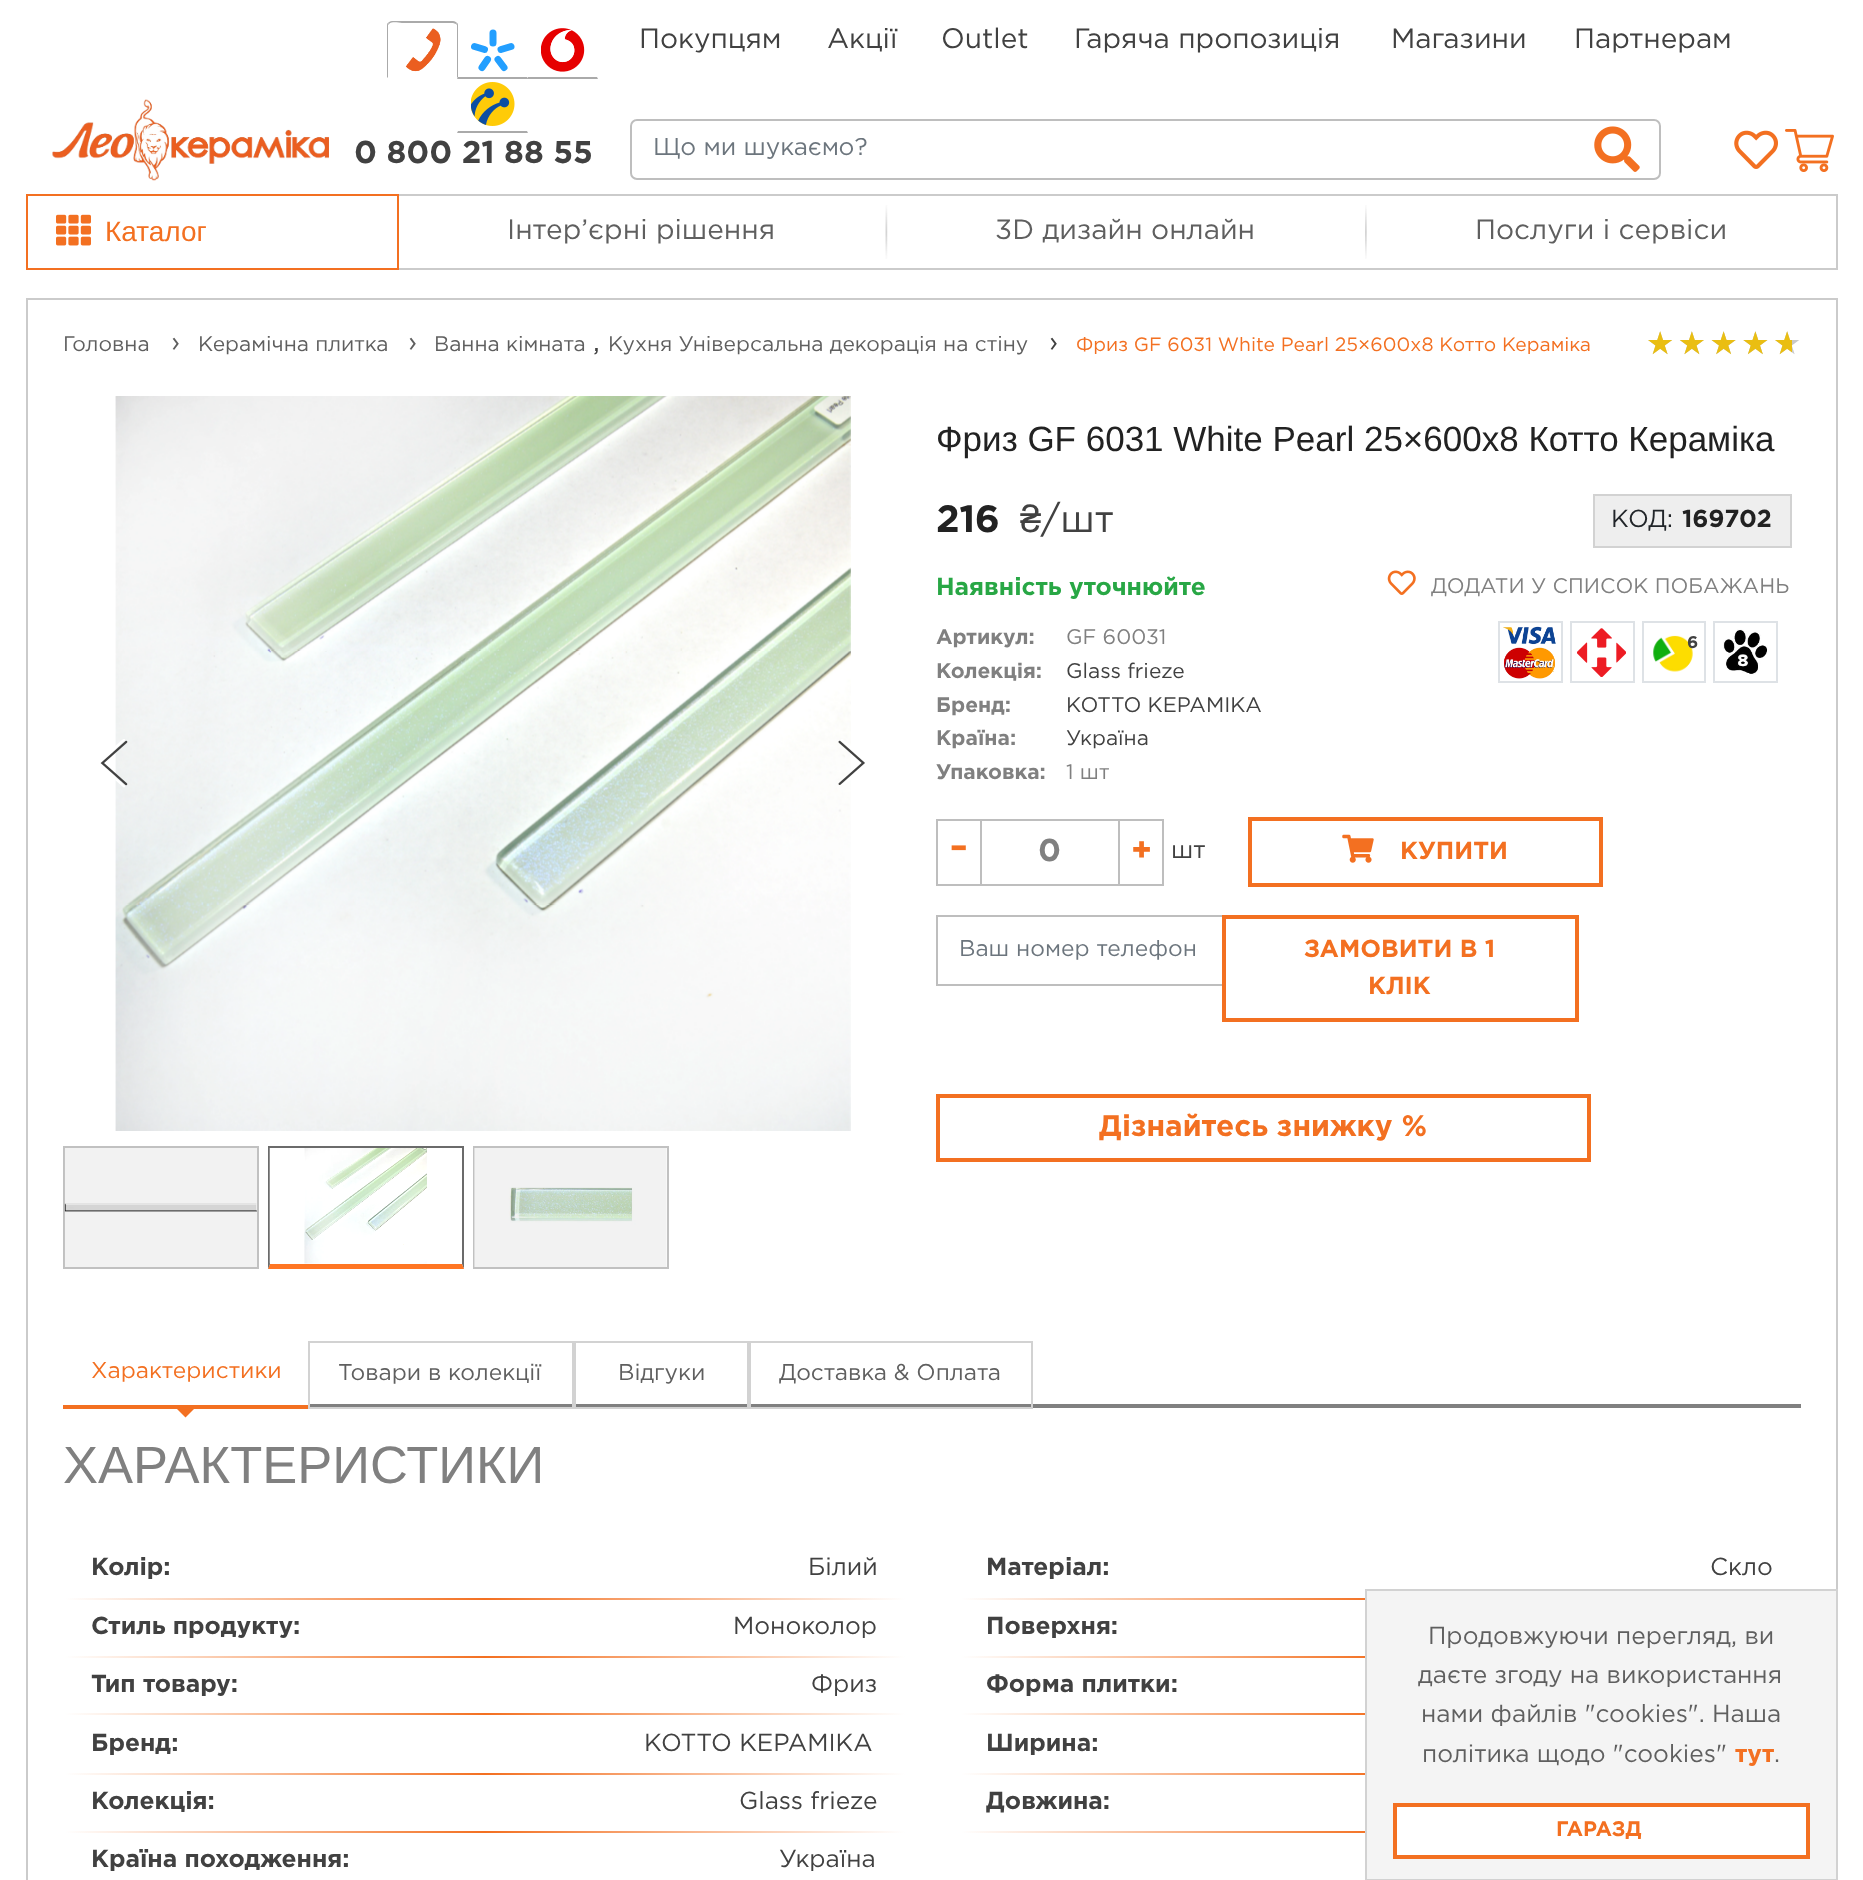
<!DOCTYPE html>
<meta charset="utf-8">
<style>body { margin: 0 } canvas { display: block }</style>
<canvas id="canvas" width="1863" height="1880"></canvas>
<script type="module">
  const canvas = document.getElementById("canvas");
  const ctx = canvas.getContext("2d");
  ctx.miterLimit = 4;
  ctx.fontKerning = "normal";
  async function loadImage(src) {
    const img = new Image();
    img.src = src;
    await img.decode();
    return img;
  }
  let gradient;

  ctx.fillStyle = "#ffffff";
  ctx.fillRect(0, 0, 1863, 1880);
  ctx.font = "28px Gotham";
  ctx.fillStyle = "#414141";
  ctx.fillText("Покупцям", 639, 48);
  ctx.fillText("Акції", 827, 48);
  ctx.fillText("Outlet", 941, 48);
  ctx.fillText("Гаряча пропозиція", 1074, 48);
  ctx.fillText("Магазини", 1391, 48);
  ctx.fillText("Партнерам", 1574, 48);
  ctx.drawImage(await loadImage("img1.png"), 52, 99, 277, 82);
  ctx.fillStyle = "#aaaaaa";
  ctx.beginPath();
  ctx.moveTo(392, 21);
  ctx.bezierCurveTo(390, 21, 389, 22, 388, 23);
  ctx.lineTo(389, 24);
  ctx.bezierCurveTo(393, 21, 398, 23, 402, 23);
  ctx.lineTo(453, 23);
  ctx.lineTo(456, 24);
  ctx.lineTo(457, 23);
  ctx.bezierCurveTo(456, 22, 455, 21, 453, 21);
  ctx.closePath();
  ctx.fill();
  ctx.beginPath();
  ctx.moveTo(457, 23);
  ctx.bezierCurveTo(458, 23, 458, 25, 458, 26);
  ctx.lineTo(458, 78);
  ctx.lineTo(457, 77);
  ctx.lineTo(457, 25);
  ctx.lineTo(456, 24);
  ctx.closePath();
  ctx.fill();
  ctx.beginPath();
  ctx.moveTo(388, 23);
  ctx.bezierCurveTo(387, 23, 387, 25, 387, 26);
  ctx.lineTo(387, 78);
  ctx.lineTo(388, 77);
  ctx.lineTo(388, 25);
  ctx.lineTo(389, 24);
  ctx.closePath();
  ctx.fill();
  ctx.drawImage(await loadImage("img2.png"), 405, 28, 36, 44);
  ctx.beginPath();
  ctx.moveTo(528, 79);
  ctx.lineTo(457, 79);
  ctx.lineTo(458, 77);
  ctx.lineTo(527, 77);
  ctx.closePath();
  ctx.fill();
  ctx.beginPath();
  ctx.moveTo(493, 43);
  ctx.lineTo(493, 33);
  ctx.moveTo(498, 59.5);
  ctx.lineTo(504, 67.5);
  ctx.moveTo(482, 67.5);
  ctx.lineTo(487.5, 59.5);
  ctx.moveTo(501, 49.5);
  ctx.lineTo(511, 46.5);
  ctx.moveTo(474.5, 46.5);
  ctx.lineTo(484.5, 49.5);
  ctx.strokeStyle = "#239fff";
  ctx.lineWidth = 7;
  ctx.lineCap = "round";
  ctx.stroke();
  ctx.beginPath();
  ctx.moveTo(598, 79);
  ctx.lineTo(527, 79);
  ctx.lineTo(528, 77);
  ctx.lineTo(597, 77);
  ctx.closePath();
  ctx.fill();
  ctx.drawImage(await loadImage("img3.png"), 541, 28, 44, 44);
  ctx.beginPath();
  ctx.moveTo(528, 133);
  ctx.lineTo(457, 133);
  ctx.lineTo(458, 131);
  ctx.lineTo(527, 131);
  ctx.closePath();
  ctx.fill();
  ctx.drawImage(await loadImage("img4.png"), 471, 82, 44, 44);
  ctx.font = "bold 31.5px Gotham";
  ctx.fillStyle = "#414141";
  ctx.fillText("0 800 21 88 55", 354, 163);
  ctx.beginPath();
  ctx.roundRect(631, 120, 1029, 59, 6);
  ctx.strokeStyle = "#bebebe";
  ctx.lineWidth = 2;
  ctx.stroke();
  ctx.save();
  ctx.beginPath();
  ctx.rect(653, 138, 985, 23);
  ctx.clip();
  ctx.font = "24.5px Gotham";
  ctx.fillStyle = "#6c757d";
  ctx.fillText("Що ми шукаємо?", 653, 155);
  ctx.restore();
  ctx.drawImage(await loadImage("img5.png"), 1594, 126, 46, 46);
  ctx.drawImage(await loadImage("img6.png"), 1734, 130, 44, 39);
  ctx.drawImage(await loadImage("img7.png"), 1785, 129, 49, 43);
  ctx.strokeStyle = "#cbcbcb";
  ctx.strokeRect(27, 195, 1810, 74);
  ctx.drawImage(await loadImage("img8.png"), 56, 214, 35, 32);
  ctx.strokeStyle = "#f37021";
  ctx.strokeRect(27, 195, 371, 74);
  ctx.font = "28px Liberation Sans";
  ctx.fillStyle = "#f37021";
  ctx.fillText("Каталог", 105, 241);
  ctx.font = "28px Gotham";
  ctx.fillStyle = "#5f5f5f";
  ctx.fillText("Інтер’єрні рішення", 507, 239);
  ctx.drawImage(await loadImage("img9.png"), 885, 205, 3, 54);
  ctx.fillText("3D дизайн онлайн", 995, 239);
  ctx.drawImage(await loadImage("img10.png"), 1365, 205, 2, 54);
  ctx.fillText("Послуги і сервіси", 1475, 239);
  ctx.fillStyle = "#cbcbcb";
  ctx.fillRect(26, 298, 1812, 2);
  ctx.fillRect(1836, 298, 2, 1291);
  ctx.fillRect(26, 298, 2, 1582);
  ctx.font = "21px Gotham";
  ctx.fillStyle = "#5f5f5f";
  ctx.fillText("Головна", 63, 351);
  ctx.font = "28px Gotham";
  ctx.fillText("›", 171, 351);
  ctx.font = "21px Gotham";
  ctx.fillText("Керамічна плитка", 198, 351);
  ctx.font = "28px Gotham";
  ctx.fillText("›", 408, 351);
  ctx.font = "21px Gotham";
  ctx.fillText("Ванна кімната", 434, 351);
  ctx.fillText("Кухня Універсальна декорація на стіну", 608, 351);
  ctx.font = "28px Gotham";
  ctx.fillStyle = "#414141";
  ctx.fillText("›", 1049, 351);
  ctx.font = "19.25px Gotham";
  ctx.fillStyle = "#f37021";
  ctx.fillText("Фриз GF 6031 White Pearl 25×600x8 Котто Кераміка", 1076, 351);
  ctx.font = "28px Gotham";
  ctx.fillStyle = "#414141";
  ctx.fillText(",", 593, 351);
  ctx.letterSpacing = "3.5px";
  ctx.font = "31.5px DejaVu Sans";
  ctx.fillStyle = "#c9c9c9";
  ctx.fillText("★★★★★", 1646, 354);
  ctx.save();
  ctx.beginPath();
  ctx.rect(1647, 326, 145, 31);
  ctx.clip();
  ctx.fillStyle = "#eabe12";
  ctx.fillText("★★★★★", 1646, 354);
  ctx.restore();
  ctx.drawImage(await loadImage("img11.png"), 115, 396, 736, 735);
  ctx.drawImage(await loadImage("img12.png"), 100, 739, 28, 49);
  ctx.drawImage(await loadImage("img13.png"), 838, 739, 27, 46);
  ctx.strokeStyle = "#c1c1c1";
  ctx.strokeRect(64, 1147, 194, 121);
  ctx.drawImage(await loadImage("img14.png"), 64, 1148, 193, 119);
  ctx.fillStyle = "#6b6b6b";
  ctx.fillRect(268, 1146, 196, 2);
  ctx.beginPath();
  ctx.moveTo(464, 1146);
  ctx.lineTo(464, 1269);
  ctx.lineTo(462, 1264);
  ctx.lineTo(462, 1148);
  ctx.closePath();
  ctx.fill();
  ctx.fillStyle = "#ff7623";
  ctx.beginPath();
  ctx.moveTo(464, 1269);
  ctx.lineTo(268, 1269);
  ctx.lineTo(270, 1264);
  ctx.lineTo(462, 1264);
  ctx.closePath();
  ctx.fill();
  ctx.fillStyle = "#6b6b6b";
  ctx.beginPath();
  ctx.moveTo(268, 1269);
  ctx.lineTo(268, 1146);
  ctx.lineTo(270, 1148);
  ctx.lineTo(270, 1264);
  ctx.closePath();
  ctx.fill();
  ctx.drawImage(await loadImage("img15.png"), 269, 1148, 158, 116);
  ctx.strokeRect(474, 1147, 194, 121);
  ctx.drawImage(await loadImage("img16.png"), 474, 1148, 193, 119);
  ctx.letterSpacing = "0px";
  ctx.font = "35px Liberation Sans";
  ctx.fillStyle = "#222222";
  ctx.fillText("Фриз GF 6031 White Pearl 25×600x8 Котто Кераміка", 936, 451);
  ctx.letterSpacing = "-0.5px";
  ctx.font = "bold 38px Gotham";
  ctx.fillText("216", 936, 532);
  ctx.letterSpacing = "0px";
  ctx.font = "38px Liberation Sans";
  ctx.fillStyle = "#414141";
  ctx.fillText("₴", 1020, 532);
  ctx.font = "38px Gotham";
  ctx.fillText("/шт", 1041, 532);
  ctx.fillStyle = "#eeeeee";
  ctx.beginPath();
  ctx.rect(1594, 495, 197, 52);
  ctx.fill();
  ctx.strokeStyle = "#d2d2d2";
  ctx.stroke();
  ctx.font = "24.5px Gotham";
  ctx.fillStyle = "#212529";
  ctx.fillText("КОД:", 1611, 527);
  ctx.font = "bold 24.5px Gotham";
  ctx.fillStyle = "#222222";
  ctx.fillText("169702", 1682, 527);
  ctx.fillStyle = "#28a745";
  ctx.fillText("Наявність уточнюйте", 936, 595);
  ctx.drawImage(await loadImage("img17.png"), 1387, 570, 29, 25);
  ctx.font = "21px Gotham";
  ctx.fillStyle = "#808080";
  ctx.fillText("ДОДАТИ У СПИСОК ПОБАЖАНЬ", 1431, 593);
  ctx.font = "bold 21px Gotham";
  ctx.fillText("Артикул:", 936, 644);
  ctx.font = "21px Gotham";
  ctx.fillText("GF 60031", 1066, 644);
  ctx.font = "bold 21px Gotham";
  ctx.fillText("Колекція:", 936, 678);
  ctx.font = "21px Gotham";
  ctx.fillStyle = "#414141";
  ctx.fillText("Glass frieze", 1066, 678);
  ctx.font = "bold 21px Gotham";
  ctx.fillStyle = "#808080";
  ctx.fillText("Бренд:", 936, 712);
  ctx.font = "21px Gotham";
  ctx.fillStyle = "#414141";
  ctx.fillText("КОТТО КЕРАМІКА", 1066, 712);
  ctx.font = "bold 21px Gotham";
  ctx.fillStyle = "#808080";
  ctx.fillText("Країна:", 936, 745);
  ctx.font = "21px Gotham";
  ctx.fillStyle = "#414141";
  ctx.fillText("Україна", 1066, 745);
  ctx.font = "bold 21px Gotham";
  ctx.fillStyle = "#808080";
  ctx.fillText("Упаковка:", 936, 779);
  ctx.font = "21px Gotham";
  ctx.fillText("1 шт", 1066, 779);
  ctx.strokeStyle = "#dee2e6";
  ctx.strokeRect(1499, 622, 63, 60);
  ctx.drawImage(await loadImage("img18.png"), 1503, 626, 53, 53);
  ctx.strokeRect(1571, 622, 63, 60);
  ctx.drawImage(await loadImage("img19.png"), 1577, 628, 49, 49);
  ctx.strokeRect(1643, 622, 62, 60);
  ctx.drawImage(await loadImage("img20.png"), 1653, 635, 40, 37);
  ctx.font = "bold 17px Gotham";
  ctx.fillStyle = "#414141";
  ctx.fillText("6", 1687, 648);
  ctx.strokeRect(1714, 622, 63, 60);
  ctx.drawImage(await loadImage("img21.png"), 1723, 629, 45, 46);
  ctx.fillStyle = "#bebebe";
  ctx.fillRect(936, 819, 44, 2);
  ctx.fillRect(936, 884, 44, 2);
  ctx.fillRect(936, 819, 2, 67);
  ctx.font = "bold 33px Gotham";
  ctx.fillStyle = "#f37021";
  ctx.fillText("–", 950, 858);
  ctx.strokeStyle = "#bebebe";
  ctx.strokeRect(981, 820, 138, 65);
  ctx.font = "bold 31.5px Gotham";
  ctx.fillStyle = "#808080";
  ctx.fillText("0", 1038, 861);
  ctx.fillStyle = "#bebebe";
  ctx.fillRect(1120, 819, 44, 2);
  ctx.fillRect(1162, 819, 2, 67);
  ctx.fillRect(1120, 884, 44, 2);
  ctx.font = "bold 33px Gotham";
  ctx.fillStyle = "#f37021";
  ctx.fillText("+", 1131, 861);
  ctx.font = "24.5px Gotham";
  ctx.fillStyle = "#414141";
  ctx.fillText("шт", 1171, 858);
  ctx.strokeStyle = "#f37021";
  ctx.lineWidth = 4;
  ctx.strokeRect(1250, 819, 351, 66);
  ctx.drawImage(await loadImage("img22.png"), 1342, 834, 32, 29);
  ctx.font = "bold 24.5px Gotham";
  ctx.fillStyle = "#f37021";
  ctx.fillText("КУПИТИ", 1400, 859);
  ctx.fillStyle = "#bebebe";
  ctx.fillRect(936, 915, 286, 2);
  ctx.fillRect(936, 984, 286, 2);
  ctx.fillRect(936, 915, 2, 70);
  ctx.font = "22.75px Gotham";
  ctx.fillStyle = "#6c757d";
  ctx.fillText("Ваш номер телефон", 959, 956);
  ctx.strokeRect(1224, 917, 353, 103);
  ctx.font = "bold 24.5px Gotham";
  ctx.fillStyle = "#f37021";
  ctx.fillText("ЗАМОВИТИ В 1", 1304, 957);
  ctx.fillText("КЛІК", 1368, 994);
  ctx.strokeRect(938, 1096, 651, 64);
  ctx.font = "bold 29.75px Gotham";
  ctx.fillText("Дізнайтесь знижку %", 1099, 1136);
  ctx.fillStyle = "#808080";
  ctx.fillRect(310, 1404, 1491, 4);
  ctx.fillStyle = "#f37021";
  ctx.fillRect(63, 1405, 247, 4);
  ctx.font = "22.75px Gotham";
  ctx.fillText("Характеристики", 91, 1378);
  ctx.beginPath();
  ctx.moveTo(177, 1409);
  ctx.lineTo(194, 1409);
  ctx.lineTo(185.5, 1417.5);
  ctx.closePath();
  ctx.fill();
  ctx.strokeStyle = "#d2d2d2";
  ctx.lineWidth = 2;
  ctx.strokeRect(309, 1342, 264, 66);
  ctx.fillStyle = "#5f5f5f";
  ctx.fillText("Товари в колекції", 338, 1380);
  ctx.strokeRect(575, 1342, 173, 66);
  ctx.fillText("Відгуки", 618, 1380);
  ctx.strokeRect(750, 1342, 282, 66);
  ctx.fillText("Доставка & Оплата", 779, 1380);
  ctx.font = "52.5px Liberation Sans";
  ctx.fillStyle = "#808080";
  ctx.fillText("ХАРАКТЕРИСТИКИ", 63, 1483);
  ctx.font = "bold 24.5px Gotham";
  ctx.fillStyle = "#414141";
  ctx.fillText("Колір:", 91, 1575);
  ctx.font = "24.5px Gotham";
  ctx.fillText("Білий", 808, 1575);
  gradient = ctx.createLinearGradient(65, 1599, 905, 1599);
  gradient.addColorStop(0, "#ffffff");
  gradient.addColorStop(0.5, "#f37021");
  gradient.addColorStop(1, "#ffffff");
  ctx.fillStyle = gradient;
  ctx.fillRect(65, 1598, 840, 2);
  ctx.font = "bold 24.5px Gotham";
  ctx.fillStyle = "#414141";
  ctx.fillText("Стиль продукту:", 91, 1634);
  ctx.font = "24.5px Gotham";
  ctx.fillText("Моноколор", 733, 1634);
  gradient = ctx.createLinearGradient(65, 1656, 905, 1656);
  gradient.addColorStop(0, "#ffffff");
  gradient.addColorStop(0.5, "#f37021");
  gradient.addColorStop(1, "#ffffff");
  ctx.fillStyle = gradient;
  ctx.fillRect(65, 1656, 840, 2);
  ctx.font = "bold 24.5px Gotham";
  ctx.fillStyle = "#414141";
  ctx.fillText("Тип товару:", 91, 1692);
  ctx.font = "24.5px Gotham";
  ctx.fillText("Фриз", 811, 1692);
  gradient = ctx.createLinearGradient(65, 1714, 905, 1714);
  gradient.addColorStop(0, "#ffffff");
  gradient.addColorStop(0.5, "#f37021");
  gradient.addColorStop(1, "#ffffff");
  ctx.fillStyle = gradient;
  ctx.fillRect(65, 1713, 840, 2);
  ctx.font = "bold 24.5px Gotham";
  ctx.fillStyle = "#414141";
  ctx.fillText("Бренд:", 91, 1751);
  ctx.font = "24.5px Gotham";
  ctx.fillText("КОТТО КЕРАМІКА", 644, 1751);
  gradient = ctx.createLinearGradient(65, 1774, 905, 1774);
  gradient.addColorStop(0, "#ffffff");
  gradient.addColorStop(0.5, "#f37021");
  gradient.addColorStop(1, "#ffffff");
  ctx.fillStyle = gradient;
  ctx.fillRect(65, 1773, 840, 2);
  ctx.font = "bold 24.5px Gotham";
  ctx.fillStyle = "#414141";
  ctx.fillText("Колекція:", 91, 1809);
  ctx.font = "24.5px Gotham";
  ctx.fillText("Glass frieze", 739, 1809);
  gradient = ctx.createLinearGradient(65, 1831, 905, 1831);
  gradient.addColorStop(0, "#ffffff");
  gradient.addColorStop(0.5, "#f37021");
  gradient.addColorStop(1, "#ffffff");
  ctx.fillStyle = gradient;
  ctx.fillRect(65, 1831, 840, 2);
  ctx.font = "bold 24.5px Gotham";
  ctx.fillStyle = "#414141";
  ctx.fillText("Країна походження:", 91, 1867);
  ctx.font = "24.5px Gotham";
  ctx.fillText("Україна", 779, 1867);
  ctx.font = "bold 24.5px Gotham";
  ctx.fillText("Матеріал:", 986, 1575);
  ctx.font = "24.5px Gotham";
  ctx.fillText("Скло", 1710, 1575);
  gradient = ctx.createLinearGradient(961, 1599, 1799, 1599);
  gradient.addColorStop(0, "#ffffff");
  gradient.addColorStop(0.5, "#f37021");
  gradient.addColorStop(1, "#ffffff");
  ctx.fillStyle = gradient;
  ctx.fillRect(961, 1598, 404, 2);
  ctx.font = "bold 24.5px Gotham";
  ctx.fillStyle = "#414141";
  ctx.fillText("Поверхня:", 986, 1634);
  gradient = ctx.createLinearGradient(961, 1656, 1799, 1656);
  gradient.addColorStop(0, "#ffffff");
  gradient.addColorStop(0.5, "#f37021");
  gradient.addColorStop(1, "#ffffff");
  ctx.fillStyle = gradient;
  ctx.fillRect(961, 1656, 404, 2);
  ctx.fillStyle = "#414141";
  ctx.fillText("Форма плитки:", 986, 1692);
  gradient = ctx.createLinearGradient(961, 1714, 1799, 1714);
  gradient.addColorStop(0, "#ffffff");
  gradient.addColorStop(0.5, "#f37021");
  gradient.addColorStop(1, "#ffffff");
  ctx.fillStyle = gradient;
  ctx.fillRect(961, 1713, 404, 2);
  ctx.fillStyle = "#414141";
  ctx.fillText("Ширина:", 986, 1751);
  gradient = ctx.createLinearGradient(961, 1774, 1799, 1774);
  gradient.addColorStop(0, "#ffffff");
  gradient.addColorStop(0.5, "#f37021");
  gradient.addColorStop(1, "#ffffff");
  ctx.fillStyle = gradient;
  ctx.fillRect(961, 1773, 404, 2);
  ctx.fillStyle = "#414141";
  ctx.fillText("Довжина:", 986, 1809);
  gradient = ctx.createLinearGradient(961, 1831, 1799, 1831);
  gradient.addColorStop(0, "#ffffff");
  gradient.addColorStop(0.5, "#f37021");
  gradient.addColorStop(1, "#ffffff");
  ctx.fillStyle = gradient;
  ctx.fillRect(961, 1831, 404, 2);
  ctx.fillStyle = "#f4f4f4";
  ctx.beginPath();
  ctx.rect(1366, 1590, 471, 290);
  ctx.fill();
  ctx.stroke();
  ctx.font = "24.5px Gotham";
  ctx.fillStyle = "#5f5f5f";
  ctx.fillText("Продовжуючи перегляд, ви", 1428, 1644);
  ctx.fillText("даєте згоду на використання", 1418, 1683);
  ctx.fillText("нами файлів \"cookies\". Наша", 1421, 1722);
  ctx.fillText("політика щодо \"cookies\"", 1422, 1762);
  ctx.font = "bold 24.5px Gotham";
  ctx.fillStyle = "#f37021";
  ctx.fillText("тут", 1735, 1762);
  ctx.font = "24.5px Gotham";
  ctx.fillStyle = "#5f5f5f";
  ctx.fillText(".", 1774, 1762);
  ctx.fillStyle = "#ffffff";
  ctx.beginPath();
  ctx.rect(1395, 1805, 413, 52);
  ctx.fill();
  ctx.strokeStyle = "#f37021";
  ctx.lineWidth = 4;
  ctx.stroke();
  ctx.font = "bold 21px Gotham";
  ctx.fillStyle = "#f37021";
  ctx.fillText("ГАРАЗД", 1556, 1836);
</script>
